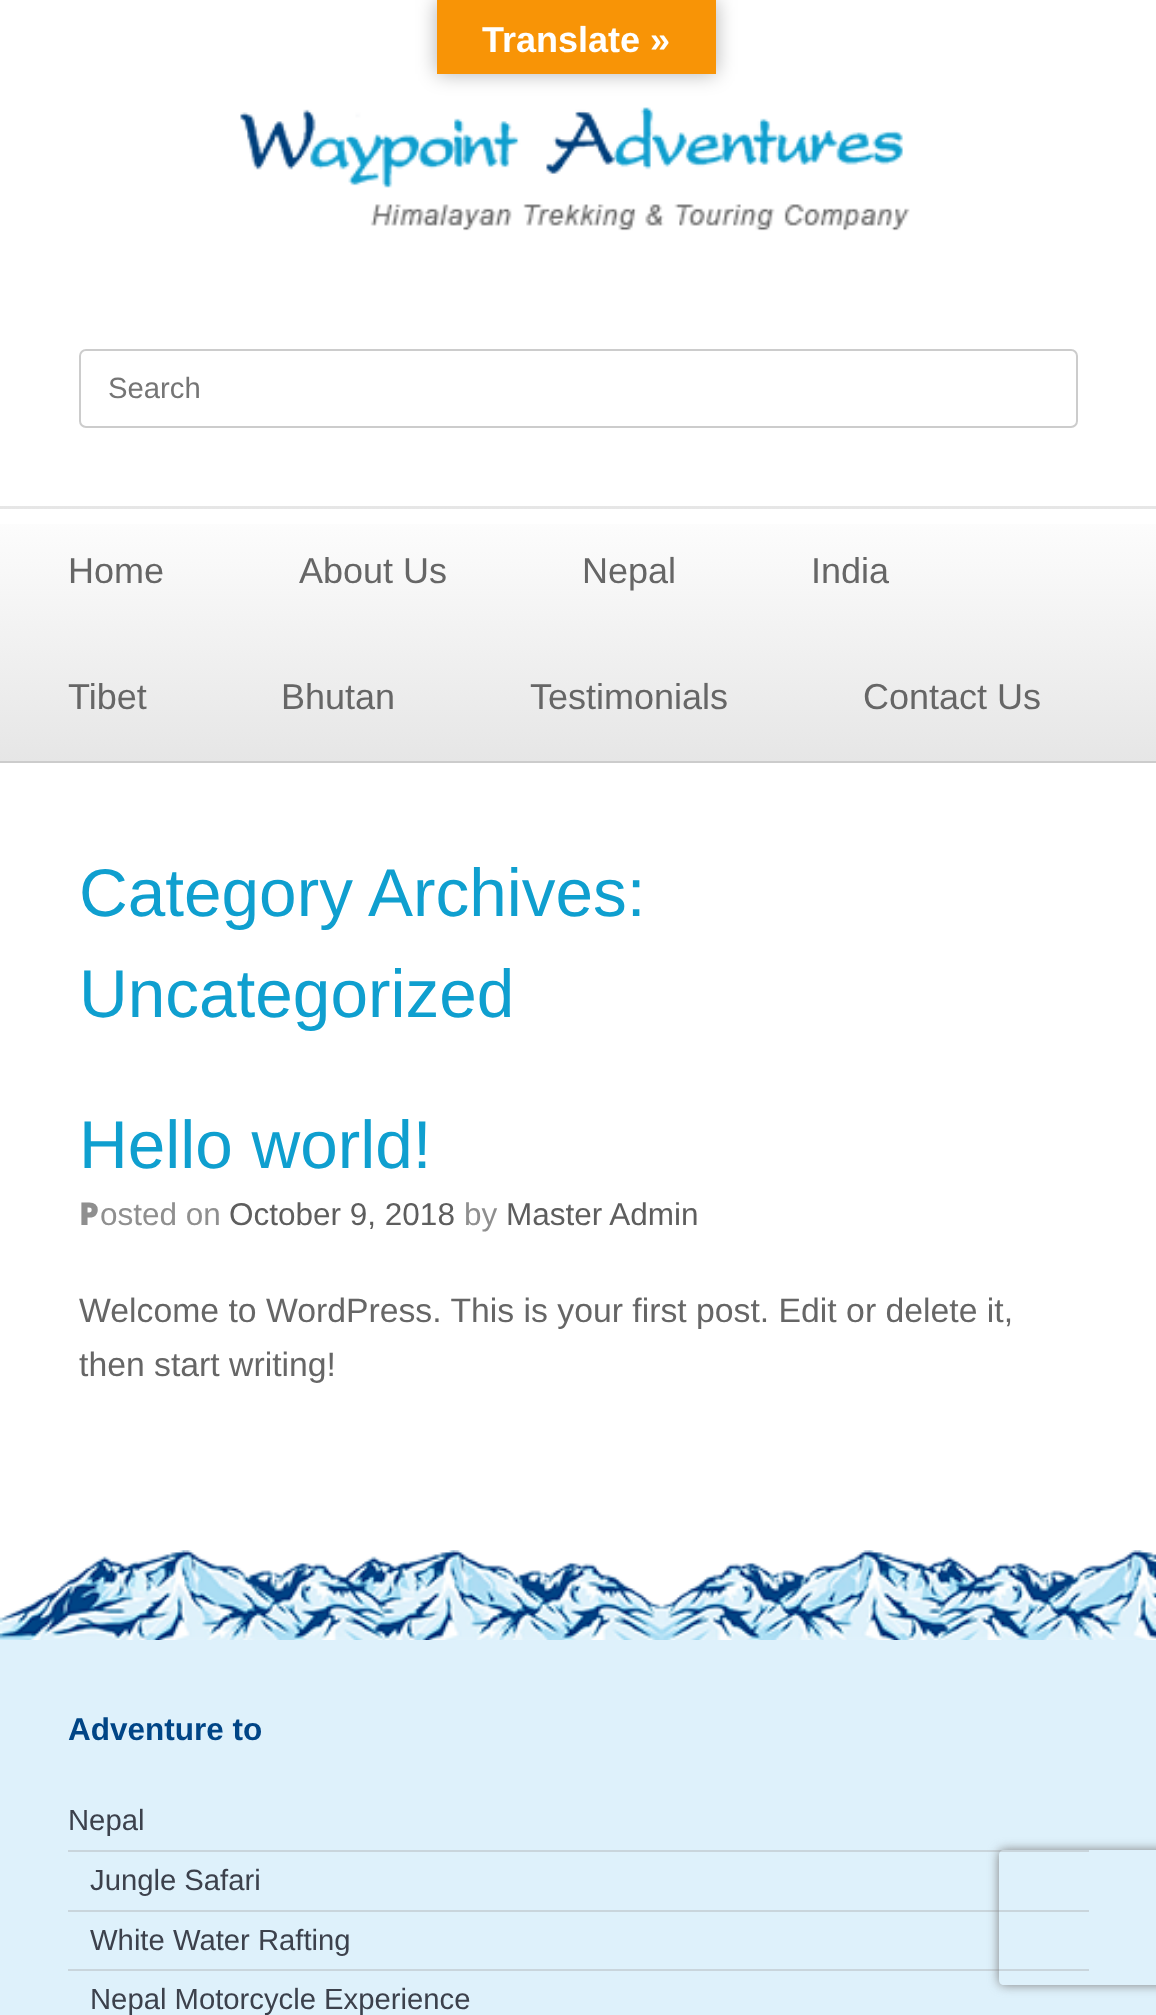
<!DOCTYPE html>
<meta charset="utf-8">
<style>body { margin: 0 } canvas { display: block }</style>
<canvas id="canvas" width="1156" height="2015"></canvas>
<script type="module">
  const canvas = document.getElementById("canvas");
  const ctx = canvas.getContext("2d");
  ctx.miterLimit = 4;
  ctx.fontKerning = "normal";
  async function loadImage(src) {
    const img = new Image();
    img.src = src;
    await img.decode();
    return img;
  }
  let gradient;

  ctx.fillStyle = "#ffffff";
  ctx.fillRect(0, 0, 1156, 2015);
  ctx.fillStyle = "rgba(0, 0, 0, 0.3)";
  ctx.filter = "blur(10px)";
  ctx.beginPath();
  ctx.rect(437, 0, 279, 74);
  ctx.fill();
  ctx.filter = "none";
  ctx.fillStyle = "#f89406";
  ctx.fillRect(437, 0, 279, 74);
  ctx.font = "bold 36px Liberation Sans";
  ctx.fillStyle = "#ffffff";
  ctx.fillText("Translate »", 482, 52);
  ctx.drawImage(await loadImage("img1.png"), 240, 107, 670, 124);
  ctx.beginPath();
  ctx.roundRect(80, 350, 997, 77, 6);
  ctx.strokeStyle = "#cccccc";
  ctx.lineWidth = 2;
  ctx.stroke();
  ctx.font = "29.25px Liberation Sans";
  ctx.fillStyle = "#757575";
  ctx.fillText("Search", 108, 398);
  gradient = ctx.createLinearGradient(578, 256, 578, 509);
  gradient.addColorStop(0, "#fefefe");
  gradient.addColorStop(1, "#e6e6e6");
  ctx.fillStyle = gradient;
  ctx.fillRect(0, 506, 1156, 3);
  gradient = ctx.createLinearGradient(578, 508, 578, 761);
  gradient.addColorStop(0, "#fefefe");
  gradient.addColorStop(1, "#e6e6e6");
  ctx.fillStyle = gradient;
  ctx.fillRect(0, 524, 1156, 237);
  ctx.fillStyle = "#cccccc";
  ctx.fillRect(0, 761, 1156, 2);
  ctx.font = "36px Liberation Sans";
  ctx.fillStyle = "#666666";
  ctx.fillText("Home", 68, 583);
  ctx.fillText("About Us", 299, 583);
  ctx.fillText("Nepal", 582, 583);
  ctx.fillText("India", 811, 583);
  ctx.fillText("Tibet", 68, 709);
  ctx.fillText("Bhutan", 281, 709);
  ctx.fillText("Testimonials", 530, 709);
  ctx.fillText("Contact Us", 863, 709);
  ctx.font = "67.5px Liberation Sans";
  ctx.fillStyle = "#0f9fcf";
  ctx.fillText("Category Archives:", 79, 916);
  ctx.fillText("Uncategorized", 79, 1017);
  ctx.fillText("Hello world!", 79, 1168);
  ctx.font = "900 31.5px Noto Sans";
  ctx.fillStyle = "#8f8f8f";
  ctx.fillText("P", 79, 1225);
  ctx.font = "31.5px Liberation Sans";
  ctx.fillText("osted on", 100, 1225);
  ctx.fillStyle = "#5e5e5e";
  ctx.fillText("October 9, 2018", 229, 1225);
  ctx.fillStyle = "#8f8f8f";
  ctx.fillText("by", 464, 1225);
  ctx.fillStyle = "#5e5e5e";
  ctx.fillText("Master Admin", 506, 1225);
  ctx.font = "33.75px Liberation Sans";
  ctx.fillStyle = "#666666";
  ctx.fillText("Welcome to WordPress. This is your first post. Edit or delete it,", 79, 1322);
  ctx.fillText("then start writing!", 79, 1376);
  ctx.drawImage(await loadImage("img2.png"), 0, 1550, 1156, 90);
  ctx.fillStyle = "#def1fb";
  ctx.fillRect(0, 1640, 1156, 375);
  ctx.font = "bold 31.5px Liberation Sans";
  ctx.fillStyle = "#004586";
  ctx.fillText("Adventure to", 68, 1740);
  ctx.fillStyle = "#c9d5dc";
  ctx.fillRect(68, 1850, 1021, 2);
  ctx.font = "29.25px Liberation Sans";
  ctx.fillStyle = "#3c414c";
  ctx.fillText("Nepal", 68, 1830);
  ctx.fillStyle = "#c9d5dc";
  ctx.fillRect(68, 1910, 1021, 2);
  ctx.fillStyle = "#3c414c";
  ctx.fillText("Jungle Safari", 90, 1890);
  ctx.fillStyle = "#c9d5dc";
  ctx.fillRect(68, 1969, 1021, 2);
  ctx.fillStyle = "#3c414c";
  ctx.fillText("White Water Rafting", 90, 1950);
  ctx.fillText("Nepal Motorcycle Experience", 90, 2009);
  ctx.save();
  ctx.beginPath();
  ctx.moveTo(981, 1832);
  ctx.lineTo(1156, 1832);
  ctx.lineTo(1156, 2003);
  ctx.lineTo(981, 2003);
  ctx.closePath();
  ctx.moveTo(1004, 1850);
  ctx.lineTo(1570, 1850);
  ctx.bezierCurveTo(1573, 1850, 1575, 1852, 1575, 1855);
  ctx.lineTo(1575, 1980);
  ctx.bezierCurveTo(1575, 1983, 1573, 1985, 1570, 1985);
  ctx.lineTo(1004, 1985);
  ctx.bezierCurveTo(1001, 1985, 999, 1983, 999, 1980);
  ctx.lineTo(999, 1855);
  ctx.bezierCurveTo(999, 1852, 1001, 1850, 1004, 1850);
  ctx.closePath();
  ctx.clip("evenodd");
  ctx.fillStyle = "#808080";
  ctx.filter = "blur(5.5px)";
  ctx.beginPath();
  ctx.roundRect(999, 1850, 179, 135, 5);
  ctx.fill();
  ctx.filter = "none";
  ctx.restore();
</script>
